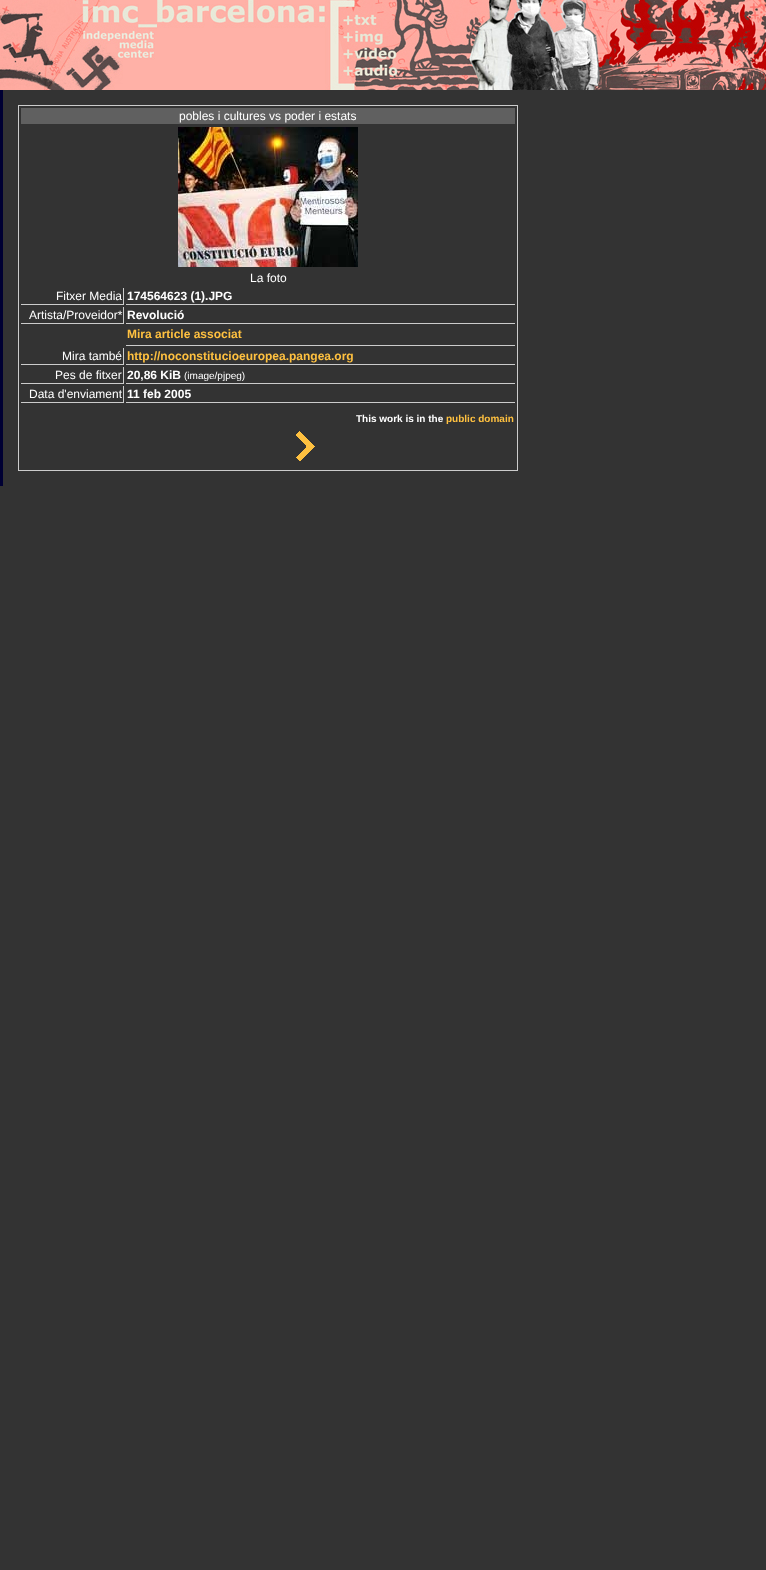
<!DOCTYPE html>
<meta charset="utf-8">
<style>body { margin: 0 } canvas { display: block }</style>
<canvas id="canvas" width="766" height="1570"></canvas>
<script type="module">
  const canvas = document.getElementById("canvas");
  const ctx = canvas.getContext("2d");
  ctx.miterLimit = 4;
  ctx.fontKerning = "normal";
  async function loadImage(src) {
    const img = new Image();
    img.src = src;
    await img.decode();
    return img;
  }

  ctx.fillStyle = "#333333";
  ctx.fillRect(0, 0, 766, 1570);
  ctx.drawImage(await loadImage("img1.png"), 0, 0, 157, 90);
  ctx.drawImage(await loadImage("img2.png"), 157, 0, 609, 90);
  ctx.fillStyle = "#000033";
  ctx.fillRect(0, 90, 3, 396);
  ctx.strokeStyle = "#cccccc";
  ctx.strokeRect(18.5, 105.5, 499, 365);
  ctx.fillStyle = "#606060";
  ctx.fillRect(21, 108, 494, 16);
  ctx.font = "12px Liberation Sans";
  ctx.fillStyle = "#ffffff";
  ctx.fillText("pobles i cultures vs poder i estats", 179, 120);
  ctx.drawImage(await loadImage("img3.png"), 178, 127, 180, 140);
  ctx.fillText("La foto", 250, 282);
  ctx.fillStyle = "#cccccc";
  ctx.fillRect(123, 288, 1, 17);
  ctx.fillRect(21, 304, 103, 1);
  ctx.fillStyle = "#ffffff";
  ctx.fillText("Fitxer Media", 56, 300);
  ctx.fillStyle = "#cccccc";
  ctx.fillRect(126, 304, 389, 1);
  ctx.font = "bold 12px Liberation Sans";
  ctx.fillStyle = "#ffffff";
  ctx.fillText("174564623 (1).JPG", 127, 300);
  ctx.fillStyle = "#cccccc";
  ctx.fillRect(123, 307, 1, 17);
  ctx.fillRect(21, 323, 103, 1);
  ctx.font = "12px Liberation Sans";
  ctx.fillStyle = "#ffffff";
  ctx.fillText("Artista/Proveidor*", 29, 319);
  ctx.fillStyle = "#cccccc";
  ctx.fillRect(126, 323, 389, 1);
  ctx.font = "bold 12px Liberation Sans";
  ctx.fillStyle = "#ffffff";
  ctx.fillText("Revolució", 127, 319);
  ctx.fillStyle = "#cccccc";
  ctx.fillRect(126, 345, 389, 1);
  ctx.fillStyle = "#ffc140";
  ctx.fillText("Mira article associat", 127, 338);
  ctx.fillStyle = "#cccccc";
  ctx.fillRect(123, 348, 1, 17);
  ctx.fillRect(21, 364, 103, 1);
  ctx.font = "12px Liberation Sans";
  ctx.fillStyle = "#ffffff";
  ctx.fillText("Mira també", 62, 360);
  ctx.fillStyle = "#cccccc";
  ctx.fillRect(126, 364, 389, 1);
  ctx.font = "bold 12px Liberation Sans";
  ctx.fillStyle = "#ffc140";
  ctx.fillText("http://noconstitucioeuropea.pangea.org", 127, 360);
  ctx.fillStyle = "#cccccc";
  ctx.fillRect(123, 367, 1, 17);
  ctx.fillRect(21, 383, 103, 1);
  ctx.font = "12px Liberation Sans";
  ctx.fillStyle = "#ffffff";
  ctx.fillText("Pes de fitxer", 55, 379);
  ctx.fillStyle = "#cccccc";
  ctx.fillRect(126, 383, 389, 1);
  ctx.font = "bold 12px Liberation Sans";
  ctx.fillStyle = "#ffffff";
  ctx.fillText("20,86 KiB", 127, 379);
  ctx.font = "10px Liberation Sans";
  ctx.fillText("(image/pjpeg)", 184, 379);
  ctx.fillStyle = "#cccccc";
  ctx.fillRect(123, 386, 1, 17);
  ctx.fillRect(21, 402, 103, 1);
  ctx.font = "12px Liberation Sans";
  ctx.fillStyle = "#ffffff";
  ctx.fillText("Data d'enviament", 29, 398);
  ctx.fillStyle = "#cccccc";
  ctx.fillRect(126, 402, 389, 1);
  ctx.font = "bold 12px Liberation Sans";
  ctx.fillStyle = "#ffffff";
  ctx.fillText("11 feb 2005", 127, 398);
  ctx.font = "bold 10px Liberation Sans";
  ctx.fillText("This work is in the", 356, 422);
  ctx.fillStyle = "#ffc140";
  ctx.fillText("public domain", 446, 422);
  ctx.drawImage(await loadImage("img4.png"), 296, 431, 19, 30);
</script>
